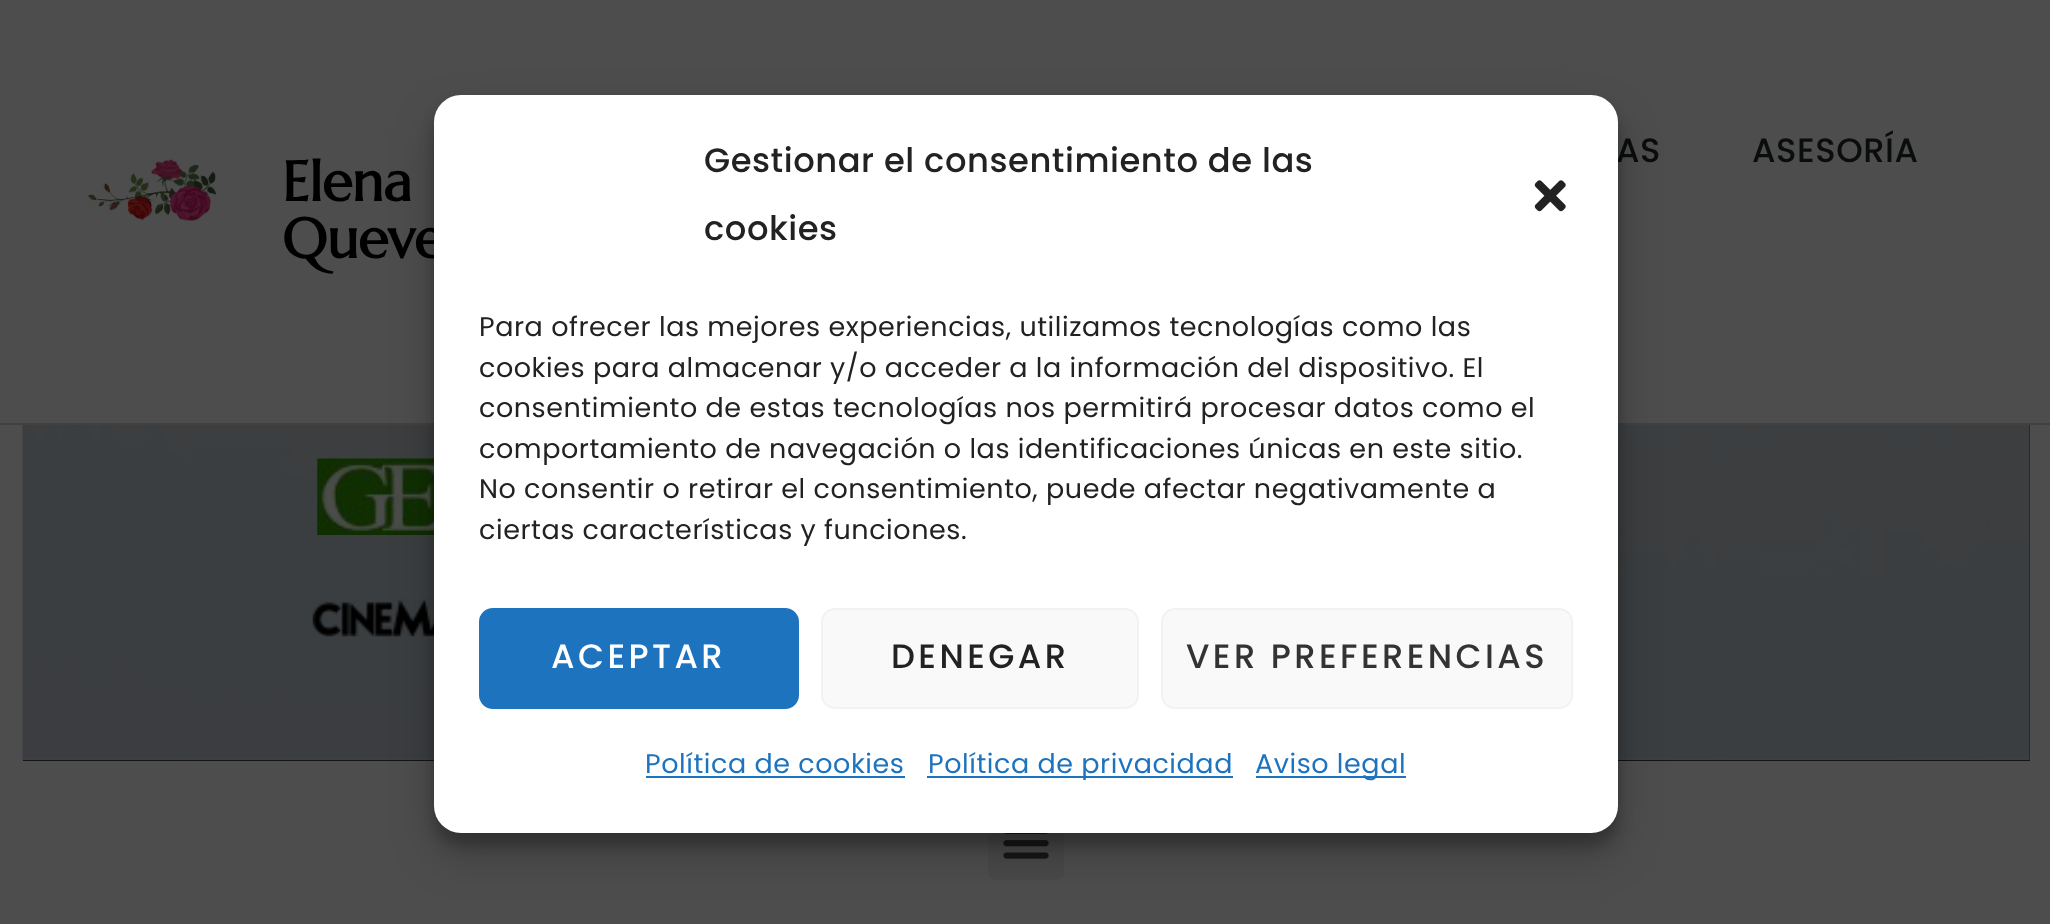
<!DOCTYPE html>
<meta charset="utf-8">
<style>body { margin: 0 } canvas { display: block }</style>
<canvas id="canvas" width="2050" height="924"></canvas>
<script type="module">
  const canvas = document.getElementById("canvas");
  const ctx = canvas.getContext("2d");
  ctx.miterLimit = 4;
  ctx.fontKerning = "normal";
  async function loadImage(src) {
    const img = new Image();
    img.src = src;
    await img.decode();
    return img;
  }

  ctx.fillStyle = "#4d4d4d";
  ctx.fillRect(0, 0, 2050, 924);
  ctx.fillStyle = "#414141";
  ctx.fillRect(0, 423, 2050, 2);
  ctx.letterSpacing = "0.55px";
  ctx.font = "500 33.75px Poppins";
  ctx.fillStyle = "#0b0d0d";
  ctx.fillText("AS", 1616, 162);
  ctx.fillText("ASESORÍA", 1752, 162);
  ctx.drawImage(await loadImage("img1.png"), 87, 159, 129, 62);
  ctx.letterSpacing = "-0.5px";
  ctx.font = "bold 56px Marcellus";
  ctx.fillStyle = "#000000";
  ctx.fillText("Elena", 282, 201);
  ctx.fillText("Queve", 282, 258);
  ctx.fillStyle = "#141415";
  ctx.fillRect(23, 425, 2007, 336);
  ctx.drawImage(await loadImage("img3.png"), 22, 425, 2008, 335);
  ctx.drawImage(await loadImage("img4.png"), 317, 458, 117, 77);
  ctx.drawImage(await loadImage("img5.png"), 312, 598, 122, 39);
  ctx.fillStyle = "#494949";
  ctx.beginPath();
  ctx.roundRect(988, 806, 76, 74, 7);
  ctx.fill();
  ctx.drawImage(await loadImage("img6.png"), 1003, 833, 46, 26);
  ctx.fillStyle = "rgba(0, 0, 0, 0.23)";
  ctx.filter = "blur(7px)";
  ctx.beginPath();
  ctx.roundRect(434, 108, 1184, 738, 27);
  ctx.fill();
  ctx.filter = "none";
  ctx.fillStyle = "rgba(0, 0, 0, 0.19)";
  ctx.filter = "blur(22.5px)";
  ctx.beginPath();
  ctx.roundRect(434, 117, 1184, 738, 27);
  ctx.fill();
  ctx.filter = "none";
  ctx.fillStyle = "#ffffff";
  ctx.beginPath();
  ctx.roundRect(434, 95, 1184, 738, 27);
  ctx.fill();
  ctx.letterSpacing = "0.55px";
  ctx.font = "500 33.75px Poppins";
  ctx.fillStyle = "#222222";
  ctx.fillText("Gestionar el consentimiento de las", 704, 172);
  ctx.fillText("cookies", 704, 240);
  ctx.drawImage(await loadImage("img2.png"), 1534, 180, 32, 32);
  ctx.font = "27px Poppins";
  ctx.fillText("Para ofrecer las mejores experiencias, utilizamos tecnologías como las", 479, 336);
  ctx.fillText("cookies para almacenar y/o acceder a la información del dispositivo. El", 479, 377);
  ctx.fillText("consentimiento de estas tecnologías nos permitirá procesar datos como el", 479, 417);
  ctx.fillText("comportamiento de navegación o las identificaciones únicas en este sitio.", 479, 458);
  ctx.fillText("No consentir o retirar el consentimiento, puede afectar negativamente a", 479, 498);
  ctx.fillText("ciertas características y funciones.", 479, 539);
  ctx.fillStyle = "#1e73be";
  ctx.beginPath();
  ctx.roundRect(480, 609, 318, 99, 13);
  ctx.fill();
  ctx.strokeStyle = "#1e73be";
  ctx.lineWidth = 2;
  ctx.stroke();
  ctx.letterSpacing = "3.4px";
  ctx.font = "500 33.75px Poppins";
  ctx.fillStyle = "#ffffff";
  ctx.fillText("ACEPTAR", 551, 668);
  ctx.fillStyle = "#f9f9f9";
  ctx.beginPath();
  ctx.roundRect(822, 609, 316, 99, 13);
  ctx.fill();
  ctx.strokeStyle = "#f2f2f2";
  ctx.stroke();
  ctx.fillStyle = "#222222";
  ctx.fillText("DENEGAR", 891, 668);
  ctx.fillStyle = "#f9f9f9";
  ctx.beginPath();
  ctx.roundRect(1162, 609, 410, 99, 13);
  ctx.fill();
  ctx.stroke();
  ctx.fillStyle = "#333333";
  ctx.fillText("VER PREFERENCIAS", 1186, 668);
  ctx.letterSpacing = "0.55px";
  ctx.font = "27px Poppins";
  ctx.fillStyle = "#1e73be";
  ctx.fillText("Política de cookies", 645, 773);
  ctx.fillRect(646, 776, 259, 2);
  ctx.fillRect(927, 776, 306, 2);
  ctx.fillText("Política de privacidad", 928, 773);
  ctx.fillRect(1256, 776, 150, 2);
  ctx.fillText("Aviso legal", 1255, 773);
</script>
